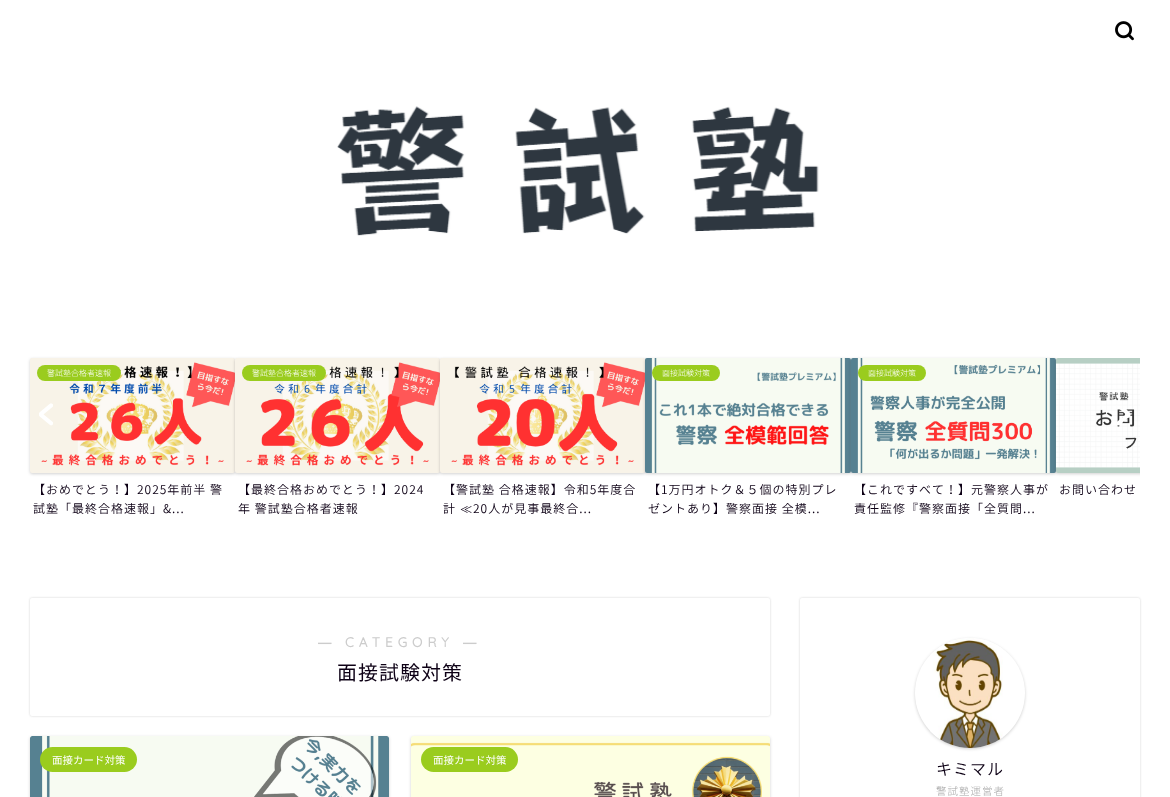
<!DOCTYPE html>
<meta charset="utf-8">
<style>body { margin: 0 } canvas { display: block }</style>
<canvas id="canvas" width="1170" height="797"></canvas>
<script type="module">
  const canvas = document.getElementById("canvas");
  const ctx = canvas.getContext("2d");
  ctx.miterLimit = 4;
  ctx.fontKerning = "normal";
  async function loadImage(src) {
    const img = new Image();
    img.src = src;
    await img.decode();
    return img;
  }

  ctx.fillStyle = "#ffffff";
  ctx.fillRect(0, 0, 1170, 797);
  ctx.drawImage(await loadImage("img1.png"), 1115, 21, 19, 20);
  ctx.drawImage(await loadImage("img2.png"), 337, 106, 482, 130);
  ctx.fillStyle = "rgba(0, 0, 0, 0.18)";
  ctx.filter = "blur(1.5px)";
  ctx.beginPath();
  ctx.roundRect(30, 359, 205, 115, 2);
  ctx.fill();
  ctx.filter = "none";
  ctx.drawImage(await loadImage("img3.png"), 30, 358, 205, 115);
  ctx.fillStyle = "#9acc1e";
  ctx.beginPath();
  ctx.roundRect(37, 365, 84, 16, 8);
  ctx.fill();
  ctx.font = "300 8px Noto Sans JP";
  ctx.fillStyle = "#ffffff";
  ctx.fillText("警試塾合格者速報", 47, 376);
  ctx.letterSpacing = "1px";
  ctx.font = "300 12px 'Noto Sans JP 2'";
  ctx.fillStyle = "#0d0015";
  ctx.fillText("【おめでとう！】2025年前半 警", 33, 494);
  ctx.fillText("試塾「最終合格速報」&...", 33, 513);
  ctx.fillStyle = "rgba(0, 0, 0, 0.18)";
  ctx.filter = "blur(1.5px)";
  ctx.beginPath();
  ctx.roundRect(235, 359, 205, 115, 2);
  ctx.fill();
  ctx.filter = "none";
  ctx.drawImage(await loadImage("img4.png"), 235, 358, 205, 115);
  ctx.fillStyle = "#9acc1e";
  ctx.beginPath();
  ctx.roundRect(242, 365, 84, 16, 8);
  ctx.fill();
  ctx.letterSpacing = "0px";
  ctx.font = "300 8px Noto Sans JP";
  ctx.fillStyle = "#ffffff";
  ctx.fillText("警試塾合格者速報", 252, 376);
  ctx.letterSpacing = "1px";
  ctx.font = "300 12px 'Noto Sans JP 2'";
  ctx.fillStyle = "#0d0015";
  ctx.fillText("【最終合格おめでとう！】2024", 238, 494);
  ctx.fillText("年 警試塾合格者速報", 238, 513);
  ctx.fillStyle = "rgba(0, 0, 0, 0.18)";
  ctx.filter = "blur(1.5px)";
  ctx.beginPath();
  ctx.roundRect(440, 359, 205, 115, 2);
  ctx.fill();
  ctx.filter = "none";
  ctx.drawImage(await loadImage("img5.png"), 440, 358, 205, 115);
  ctx.fillStyle = "#0d0015";
  ctx.fillText("【警試塾 合格速報】令和5年度合", 443, 494);
  ctx.fillText("計", 443, 513);
  ctx.font = "500 12px WenQuanYi Zen Hei";
  ctx.fillText("≪", 460, 513);
  ctx.font = "300 12px 'Noto Sans JP 2'";
  ctx.fillText("20人が見事最終合...", 473, 513);
  ctx.fillStyle = "rgba(0, 0, 0, 0.18)";
  ctx.filter = "blur(1.5px)";
  ctx.beginPath();
  ctx.roundRect(645, 359, 206, 115, 2);
  ctx.fill();
  ctx.filter = "none";
  ctx.drawImage(await loadImage("img6.png"), 645, 358, 206, 115);
  ctx.fillStyle = "#9acc1e";
  ctx.beginPath();
  ctx.roundRect(652, 365, 68, 16, 8);
  ctx.fill();
  ctx.letterSpacing = "0px";
  ctx.font = "300 8px Noto Sans JP";
  ctx.fillStyle = "#ffffff";
  ctx.fillText("面接試験対策", 662, 376);
  ctx.letterSpacing = "1px";
  ctx.font = "300 12px 'Noto Sans JP 2'";
  ctx.fillStyle = "#0d0015";
  ctx.fillText("【1万円オトク＆５個の特別プレ", 648, 494);
  ctx.fillText("ゼントあり】警察面接 全模...", 648, 513);
  ctx.fillStyle = "rgba(0, 0, 0, 0.18)";
  ctx.filter = "blur(1.5px)";
  ctx.beginPath();
  ctx.roundRect(851, 359, 205, 115, 2);
  ctx.fill();
  ctx.filter = "none";
  ctx.drawImage(await loadImage("img7.png"), 851, 358, 205, 115);
  ctx.fillStyle = "#9acc1e";
  ctx.beginPath();
  ctx.roundRect(858, 365, 68, 16, 8);
  ctx.fill();
  ctx.letterSpacing = "0px";
  ctx.font = "300 8px Noto Sans JP";
  ctx.fillStyle = "#ffffff";
  ctx.fillText("面接試験対策", 868, 376);
  ctx.letterSpacing = "1px";
  ctx.font = "300 12px 'Noto Sans JP 2'";
  ctx.fillStyle = "#0d0015";
  ctx.fillText("【これですべて！】元警察人事が", 854, 494);
  ctx.fillText("責任監修『警察面接「全質問...", 854, 513);
  ctx.save();
  ctx.beginPath();
  ctx.rect(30, 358, 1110, 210);
  ctx.clip();
  ctx.fillStyle = "rgba(0, 0, 0, 0.18)";
  ctx.filter = "blur(1.5px)";
  ctx.beginPath();
  ctx.roundRect(1056, 359, 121, 115, 2);
  ctx.fill();
  ctx.filter = "none";
  ctx.restore();
  ctx.drawImage(await loadImage("img8.png"), 1056, 358, 84, 115);
  ctx.fillText("お問い合わせ", 1059, 494);
  ctx.drawImage(await loadImage("img9.png"), 39, 403, 14, 23);
  ctx.drawImage(await loadImage("img10.png"), 1117, 409, 14, 17);
  ctx.fillStyle = "rgba(0, 0, 0, 0.18)";
  ctx.filter = "blur(1px)";
  ctx.beginPath();
  ctx.roundRect(30, 598, 740, 118, 2);
  ctx.fill();
  ctx.filter = "none";
  ctx.fillStyle = "#ffffff";
  ctx.beginPath();
  ctx.roundRect(30, 598, 740, 118, 2);
  ctx.fill();
  ctx.letterSpacing = "5px";
  ctx.font = "bold 13.5px Liberation Sans";
  ctx.fillStyle = "#cccccc";
  ctx.fillText("―", 318, 647);
  ctx.font = "bold 13.5px Quicksand";
  ctx.fillText("CATEGORY", 345, 647);
  ctx.font = "bold 13.5px Liberation Sans";
  ctx.fillText("―", 463, 647);
  ctx.letterSpacing = "1px";
  ctx.font = "20px Noto Sans JP";
  ctx.fillStyle = "#0d0015";
  ctx.fillText("面接試験対策", 337, 680);
  ctx.fillStyle = "rgba(0, 0, 0, 0.18)";
  ctx.filter = "blur(1.5px)";
  ctx.beginPath();
  ctx.roundRect(30, 737, 359, 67, 2);
  ctx.fill();
  ctx.filter = "none";
  ctx.drawImage(await loadImage("img11.png"), 30, 736, 359, 61);
  ctx.fillStyle = "#9acc1e";
  ctx.beginPath();
  ctx.roundRect(40, 747, 97, 25, 12.5);
  ctx.fill();
  ctx.letterSpacing = "0px";
  ctx.font = "10.5px Noto Sans JP";
  ctx.fillStyle = "#ffffff";
  ctx.fillText("面接カード対策", 52, 764);
  ctx.fillStyle = "rgba(0, 0, 0, 0.18)";
  ctx.filter = "blur(1.5px)";
  ctx.beginPath();
  ctx.roundRect(411, 737, 359, 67, 2);
  ctx.fill();
  ctx.filter = "none";
  ctx.drawImage(await loadImage("img12.png"), 411, 736, 359, 61);
  ctx.fillStyle = "#9acc1e";
  ctx.beginPath();
  ctx.roundRect(421, 747, 97, 25, 12.5);
  ctx.fill();
  ctx.fillStyle = "#ffffff";
  ctx.fillText("面接カード対策", 433, 764);
  ctx.fillStyle = "rgba(0, 0, 0, 0.18)";
  ctx.filter = "blur(1px)";
  ctx.beginPath();
  ctx.roundRect(800, 598, 340, 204, 2);
  ctx.fill();
  ctx.filter = "none";
  ctx.fillStyle = "#ffffff";
  ctx.beginPath();
  ctx.roundRect(800, 598, 340, 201, 2);
  ctx.fill();
  ctx.fillStyle = "rgba(0, 0, 0, 0.18)";
  ctx.filter = "blur(1.5px)";
  ctx.beginPath();
  ctx.roundRect(915, 639, 110, 110, 55);
  ctx.fill();
  ctx.filter = "none";
  ctx.fillStyle = "#ffffff";
  ctx.beginPath();
  ctx.arc(970, 693, 55, 0, Math.PI * 2);
  ctx.fill();
  ctx.drawImage(await loadImage("img13.png"), 930, 638, 73, 110);
  ctx.letterSpacing = "1px";
  ctx.font = "300 16px 'Noto Sans JP 2'";
  ctx.fillStyle = "#0d0015";
  ctx.fillText("キミマル", 936, 775);
  ctx.font = "300 10.5px Noto Sans JP";
  ctx.fillStyle = "#a6a6a6";
  ctx.fillText("警試塾運営者", 936, 795);
</script>
